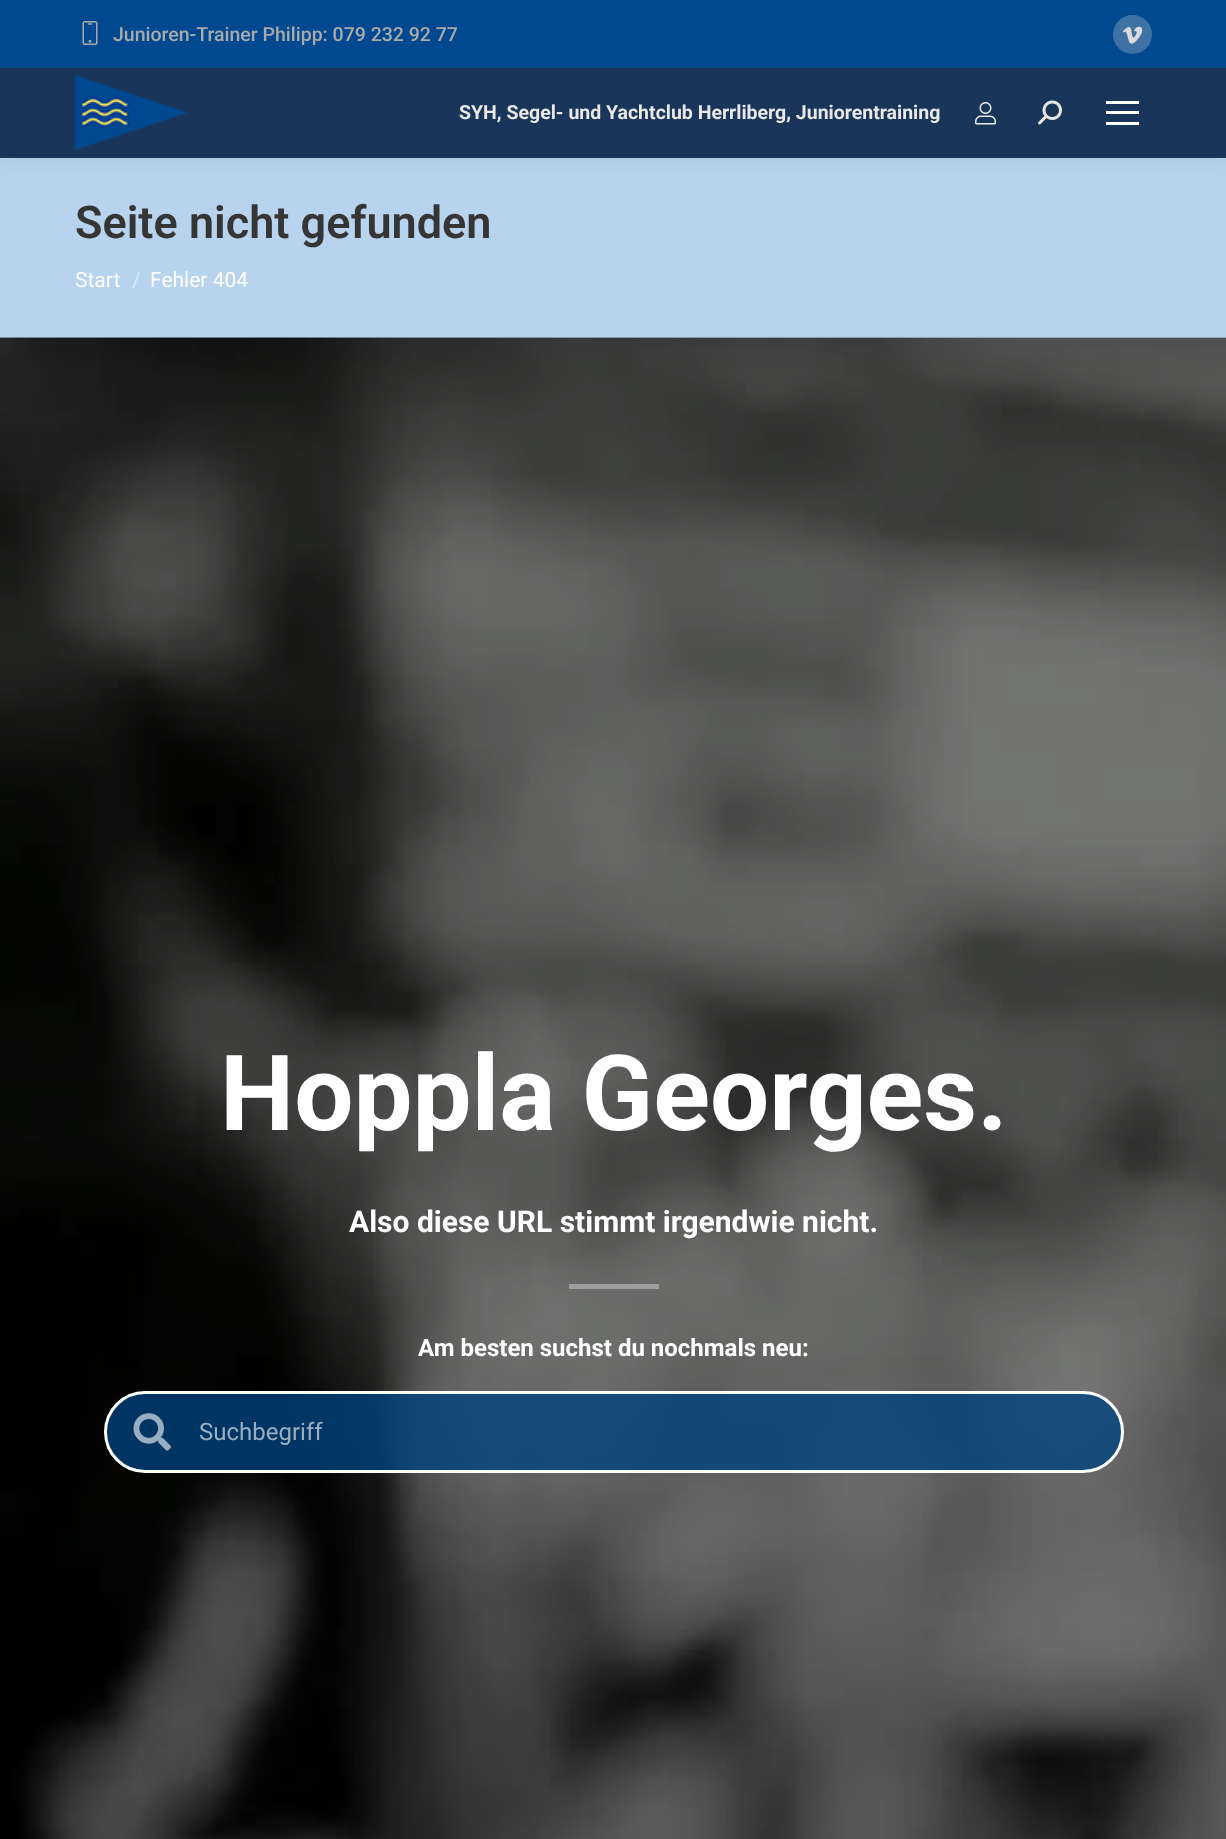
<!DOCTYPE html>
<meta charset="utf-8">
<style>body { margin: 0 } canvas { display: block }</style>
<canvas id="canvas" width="1226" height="1839"></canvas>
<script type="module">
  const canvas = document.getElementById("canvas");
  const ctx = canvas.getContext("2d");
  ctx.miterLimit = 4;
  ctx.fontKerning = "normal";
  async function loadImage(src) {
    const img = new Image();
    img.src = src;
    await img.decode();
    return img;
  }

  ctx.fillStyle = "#b8d3ee";
  ctx.fillRect(0, 0, 1226, 1839);
  ctx.fillStyle = "rgba(0, 0, 0, 0.07)";
  ctx.filter = "blur(11px)";
  ctx.beginPath();
  ctx.rect(-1, -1, 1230, 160);
  ctx.fill();
  ctx.filter = "none";
  ctx.fillStyle = "#193559";
  ctx.fillRect(0, 68, 1226, 90);
  ctx.fillStyle = "#004990";
  ctx.fillRect(0, 0, 1226, 66);
  ctx.drawImage(await loadImage("img1.png"), 82, 21, 16, 24);
  ctx.font = "500 19.5px Roboto";
  ctx.fillStyle = "#aaaaaa";
  ctx.fillText("Junioren-Trainer Philipp: 079 232 92 77", 113, 41);
  ctx.fillStyle = "#3f72a4";
  ctx.beginPath();
  ctx.arc(1132.5, 34.5, 19.5, 0, Math.PI * 2);
  ctx.fill();
  ctx.drawImage(await loadImage("img2.png"), 1122, 26, 21, 18);
  ctx.fillStyle = "#074887";
  ctx.fillRect(0, 66, 1226, 2);
  ctx.drawImage(await loadImage("img3.png"), 75, 75, 113, 75);
  ctx.font = "bold 19.5px Roboto";
  ctx.fillStyle = "#e8e8e8";
  ctx.fillText("SYH, Segel- und Yachtclub Herrliberg, Juniorentraining", 459, 119);
  ctx.drawImage(await loadImage("img4.png"), 975, 102, 21, 23);
  ctx.drawImage(await loadImage("img5.png"), 1038, 100, 24, 25);
  ctx.fillStyle = "#ffffff";
  ctx.fillRect(1106, 101, 33, 3);
  ctx.fillRect(1106, 111, 33, 3);
  ctx.fillRect(1106, 122, 33, 3);
  ctx.font = "600 45px Roboto";
  ctx.fillStyle = "#353535";
  ctx.fillText("Seite nicht gefunden", 75, 238);
  ctx.font = "21px Roboto";
  ctx.fillStyle = "#ffffff";
  ctx.fillText("Start", 75, 287);
  ctx.fillStyle = "#dce9f7";
  ctx.fillText("/", 132, 287);
  ctx.fillStyle = "#ffffff";
  ctx.fillText("Fehler 404", 150, 287);
  ctx.drawImage(await loadImage("img6.png"), 0, 337, 1226, 1502);
  ctx.font = "bold 105px Roboto";
  ctx.fillText("Hoppla Georges.", 220, 1130);
  ctx.font = "bold 30px Roboto";
  ctx.fillText("Also diese URL stimmt irgendwie nicht.", 349, 1232);
  ctx.fillStyle = "rgba(255, 255, 255, 0.35)";
  ctx.fillRect(569, 1284, 90, 5);
  ctx.font = "bold 24px Roboto";
  ctx.fillStyle = "#ffffff";
  ctx.fillText("Am besten suchst du nochmals neu:", 418, 1356);
  ctx.fillStyle = "rgba(0, 67, 126, 0.78)";
  ctx.beginPath();
  ctx.roundRect(105.5, 1392.5, 1017, 79, 39.5);
  ctx.fill();
  ctx.strokeStyle = "#ffffff";
  ctx.lineWidth = 3;
  ctx.stroke();
  ctx.drawImage(await loadImage("img7.png"), 133, 1413, 38, 38);
  ctx.font = "24px Roboto";
  ctx.fillStyle = "#99aec1";
  ctx.fillText("Suchbegriff", 199, 1440);
</script>
